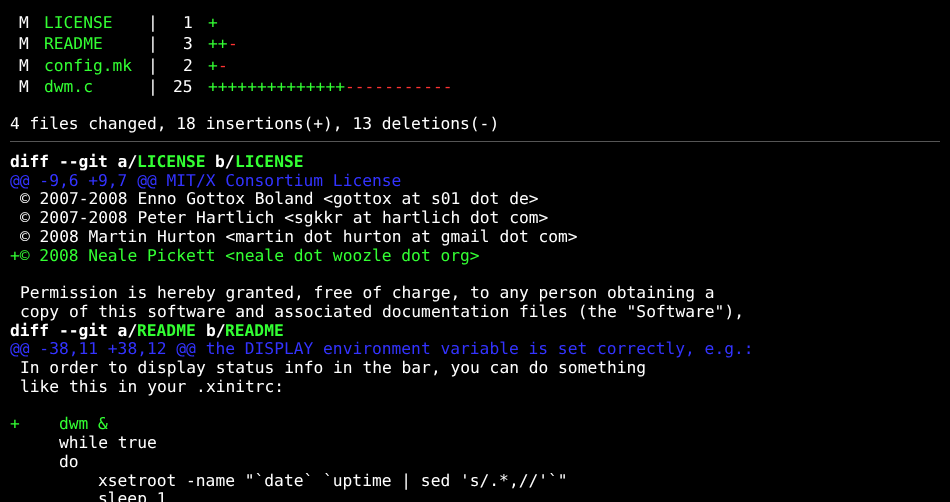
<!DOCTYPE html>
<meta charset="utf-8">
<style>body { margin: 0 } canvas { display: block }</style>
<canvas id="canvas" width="950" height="502"></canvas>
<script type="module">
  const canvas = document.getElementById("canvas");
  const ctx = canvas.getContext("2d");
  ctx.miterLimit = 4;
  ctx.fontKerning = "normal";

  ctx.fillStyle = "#000000";
  ctx.fillRect(0, 0, 950, 502);
  ctx.font = "16.25px DejaVu Sans Mono";
  ctx.fillStyle = "#ffffff";
  ctx.fillText("M", 19, 28);
  ctx.fillStyle = "#33ff33";
  ctx.fillText("LICENSE", 44, 28);
  ctx.fillStyle = "#ffffff";
  ctx.fillText("|", 148, 28);
  ctx.fillText("1", 183, 28);
  ctx.fillStyle = "#33ff33";
  ctx.fillText("+", 208, 28);
  ctx.fillStyle = "#ffffff";
  ctx.fillText("M", 19, 49);
  ctx.fillStyle = "#33ff33";
  ctx.fillText("README", 44, 49);
  ctx.fillStyle = "#ffffff";
  ctx.fillText("|", 148, 49);
  ctx.fillText("3", 183, 49);
  ctx.fillStyle = "#33ff33";
  ctx.fillText("++", 208, 49);
  ctx.fillStyle = "#ff3333";
  ctx.fillText("-", 228, 49);
  ctx.fillStyle = "#ffffff";
  ctx.fillText("M", 19, 71);
  ctx.fillStyle = "#33ff33";
  ctx.fillText("config.mk", 44, 71);
  ctx.fillStyle = "#ffffff";
  ctx.fillText("|", 148, 71);
  ctx.fillText("2", 183, 71);
  ctx.fillStyle = "#33ff33";
  ctx.fillText("+", 208, 71);
  ctx.fillStyle = "#ff3333";
  ctx.fillText("-", 218, 71);
  ctx.fillStyle = "#ffffff";
  ctx.fillText("M", 19, 92);
  ctx.fillStyle = "#33ff33";
  ctx.fillText("dwm.c", 44, 92);
  ctx.fillStyle = "#ffffff";
  ctx.fillText("|", 148, 92);
  ctx.fillText("25", 173, 92);
  ctx.fillStyle = "#33ff33";
  ctx.fillText("++++++++++++++", 208, 92);
  ctx.fillStyle = "#ff3333";
  ctx.fillText("-----------", 345, 92);
  ctx.fillStyle = "#ffffff";
  ctx.fillText("4 files changed, 18 insertions(+), 13 deletions(-)", 10, 129);
  ctx.fillStyle = "#555555";
  ctx.fillRect(10, 141, 930, 1);
  ctx.font = "bold 16.25px DejaVu Sans Mono";
  ctx.fillStyle = "#ffffff";
  ctx.fillText("diff --git a/", 10, 167);
  ctx.fillStyle = "#33ff33";
  ctx.fillText("LICENSE", 137, 167);
  ctx.fillStyle = "#ffffff";
  ctx.fillText("b/", 215, 167);
  ctx.fillStyle = "#33ff33";
  ctx.fillText("LICENSE", 235, 167);
  ctx.font = "16.25px DejaVu Sans Mono";
  ctx.fillStyle = "#3333ff";
  ctx.fillText("@@ -9,6 +9,7 @@ MIT/X Consortium License", 10, 186);
  ctx.fillStyle = "#ffffff";
  ctx.fillText("© 2007-2008 Enno Gottox Boland <gottox at s01 dot de>", 20, 204);
  ctx.fillText("© 2007-2008 Peter Hartlich <sgkkr at hartlich dot com>", 20, 223);
  ctx.fillText("© 2008 Martin Hurton <martin dot hurton at gmail dot com>", 20, 242);
  ctx.fillStyle = "#33ff33";
  ctx.fillText("+© 2008 Neale Pickett <neale dot woozle dot org>", 10, 261);
  ctx.fillStyle = "#ffffff";
  ctx.fillText("Permission is hereby granted, free of charge, to any person obtaining a", 20, 298);
  ctx.fillText("copy of this software and associated documentation files (the \"Software\"),", 20, 317);
  ctx.font = "bold 16.25px DejaVu Sans Mono";
  ctx.fillText("diff --git a/", 10, 336);
  ctx.fillStyle = "#33ff33";
  ctx.fillText("README", 137, 336);
  ctx.fillStyle = "#ffffff";
  ctx.fillText("b/", 206, 336);
  ctx.fillStyle = "#33ff33";
  ctx.fillText("README", 225, 336);
  ctx.font = "16.25px DejaVu Sans Mono";
  ctx.fillStyle = "#3333ff";
  ctx.fillText("@@ -38,11 +38,12 @@ the DISPLAY environment variable is set correctly, e.g.:", 10, 354);
  ctx.fillStyle = "#ffffff";
  ctx.fillText("In order to display status info in the bar, you can do something", 20, 373);
  ctx.fillText("like this in your .xinitrc:", 20, 392);
  ctx.fillStyle = "#33ff33";
  ctx.fillText("+    dwm &", 10, 429);
  ctx.fillStyle = "#ffffff";
  ctx.fillText("while true", 59, 448);
  ctx.fillText("do", 59, 467);
  ctx.fillText("xsetroot -name \"`date` `uptime | sed 's/.*,//'`\"", 98, 486);
  ctx.fillText("sleep 1", 98, 504);
</script>
